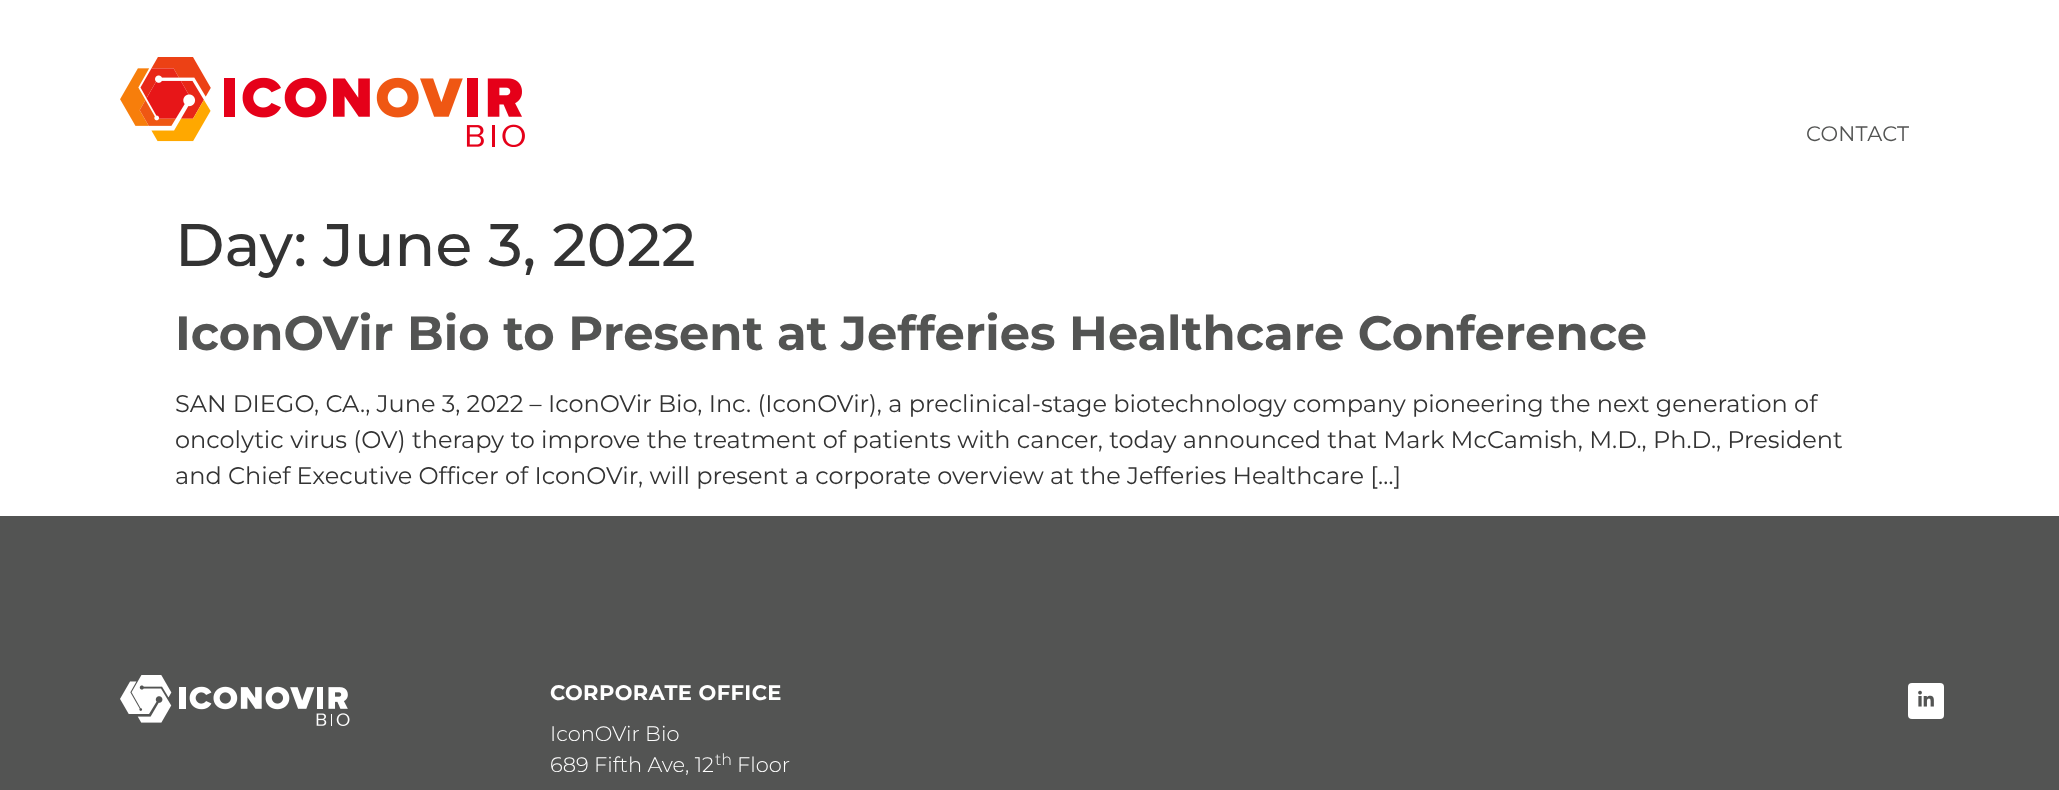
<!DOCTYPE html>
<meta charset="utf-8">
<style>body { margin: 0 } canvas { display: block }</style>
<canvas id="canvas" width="2059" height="790"></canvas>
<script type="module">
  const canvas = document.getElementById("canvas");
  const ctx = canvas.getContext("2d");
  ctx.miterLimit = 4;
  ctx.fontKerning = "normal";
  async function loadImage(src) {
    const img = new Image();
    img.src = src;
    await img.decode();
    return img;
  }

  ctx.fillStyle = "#ffffff";
  ctx.fillRect(0, 0, 2059, 790);
  ctx.drawImage(await loadImage("img1.png"), 120, 57, 405, 90);
  ctx.letterSpacing = "0.25px";
  ctx.font = "21px Montserrat";
  ctx.fillStyle = "#535453";
  ctx.fillText("CONTACT", 1806, 141);
  ctx.letterSpacing = "0px";
  ctx.font = "500 60px Montserrat";
  ctx.fillStyle = "#333333";
  ctx.fillText("Day: June 3, 2022", 175, 266);
  ctx.font = "bold 48px Montserrat";
  ctx.fillStyle = "#535453";
  ctx.fillText("IconOVir Bio to Present at Jefferies Healthcare Conference", 175, 350);
  ctx.font = "24px Montserrat";
  ctx.fillStyle = "#333333";
  ctx.fillText("SAN DIEGO, CA., June 3, 2022 – IconOVir Bio, Inc. (IconOVir), a preclinical-stage biotechnology company pioneering the next generation of", 175, 412);
  ctx.fillText("oncolytic virus (OV) therapy to improve the treatment of patients with cancer, today announced that Mark McCamish, M.D., Ph.D., President", 175, 448);
  ctx.fillText("and Chief Executive Officer of IconOVir, will present a corporate overview at the Jefferies Healthcare […]", 175, 484);
  ctx.fillStyle = "#535453";
  ctx.fillRect(0, 516, 2059, 274);
  ctx.drawImage(await loadImage("img2.png"), 120, 675, 230, 51);
  ctx.letterSpacing = "0.4px";
  ctx.font = "bold 21px Montserrat";
  ctx.fillStyle = "#ffffff";
  ctx.fillText("CORPORATE OFFICE", 550, 700);
  ctx.letterSpacing = "0px";
  ctx.font = "300 21px Montserrat";
  ctx.fillText("IconOVir Bio", 550, 741);
  ctx.fillText("689 Fifth Ave, 12", 550, 772);
  ctx.font = "300 16px Montserrat";
  ctx.fillText("th", 715, 765);
  ctx.font = "300 21px Montserrat";
  ctx.fillText("Floor", 737, 772);
  ctx.beginPath();
  ctx.roundRect(1908, 683, 36, 36, 4);
  ctx.fill();
  ctx.drawImage(await loadImage("img3.png"), 1918, 690, 16, 17);
</script>
